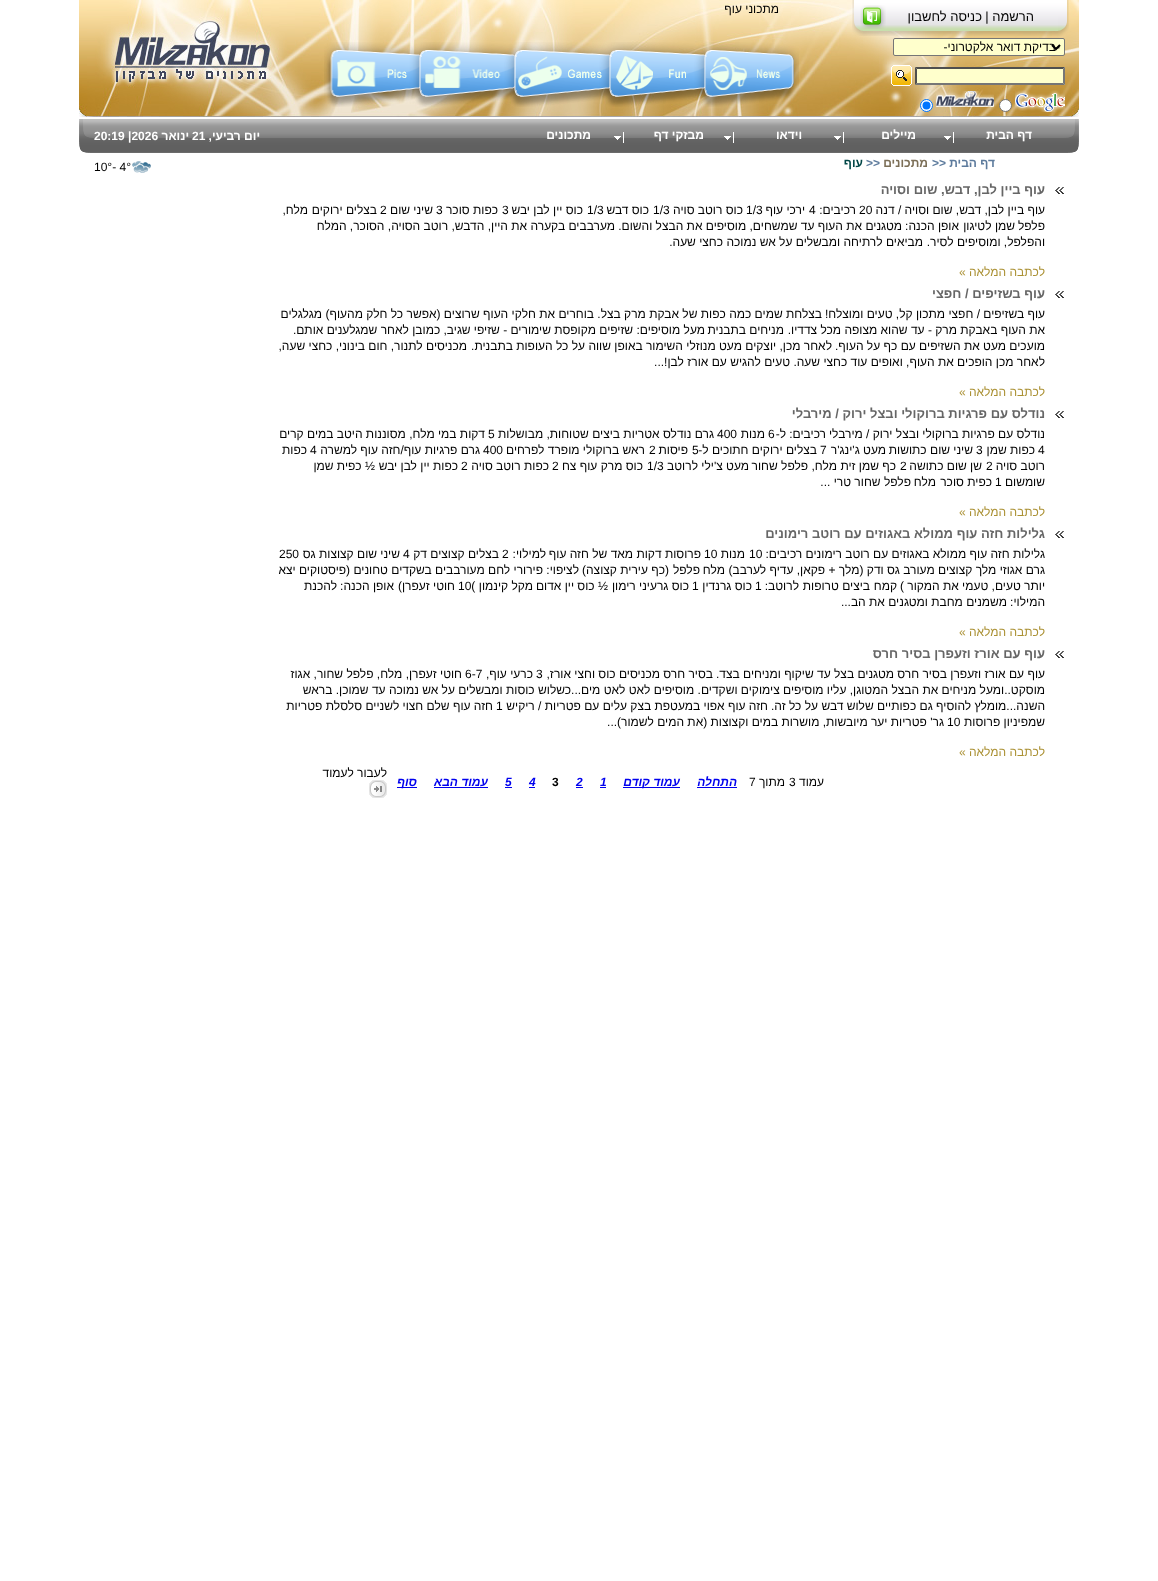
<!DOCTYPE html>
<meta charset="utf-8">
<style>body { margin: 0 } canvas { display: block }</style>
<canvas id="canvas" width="1158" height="1581"></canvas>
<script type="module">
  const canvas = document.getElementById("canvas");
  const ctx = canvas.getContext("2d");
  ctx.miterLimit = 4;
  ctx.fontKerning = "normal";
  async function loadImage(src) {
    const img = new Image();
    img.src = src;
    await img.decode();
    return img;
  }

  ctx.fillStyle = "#ffffff";
  ctx.fillRect(0, 0, 1158, 1581);
  ctx.drawImage(await loadImage("img2.png"), 79, 0, 1000, 117);
  ctx.drawImage(await loadImage("img4.png"), 863, 0, 195, 36);
  ctx.direction = "rtl";
  ctx.font = "13px Liberation Sans";
  ctx.fillStyle = "#000000";
  ctx.fillText("הרשמה |", 1034, 21);
  ctx.fillText("כניסה לחשבון", 982, 21);
  ctx.drawImage(await loadImage("img5.png"), 852, 0, 11, 36);
  ctx.drawImage(await loadImage("img1.png"), 860, 5, 26, 24);
  ctx.drawImage(await loadImage("img3.png"), 1058, 0, 11, 36);
  ctx.font = "12px Liberation Sans";
  ctx.fillText("מתכוני עוף", 779, 13);
  ctx.drawImage(await loadImage("img6.png"), 704, 42, 95, 65);
  ctx.drawImage(await loadImage("img7.png"), 609, 42, 95, 65);
  ctx.drawImage(await loadImage("img8.png"), 514, 42, 95, 65);
  ctx.drawImage(await loadImage("img9.png"), 419, 42, 95, 65);
  ctx.drawImage(await loadImage("img10.png"), 324, 42, 95, 65);
  ctx.fillStyle = "#ffffcc";
  ctx.beginPath();
  ctx.roundRect(893.5, 38.5, 171, 17, 1.5);
  ctx.fill();
  ctx.strokeStyle = "#767676";
  ctx.stroke();
  ctx.beginPath();
  ctx.moveTo(1052, 45);
  ctx.lineTo(1056, 49);
  ctx.lineTo(1060, 45);
  ctx.strokeStyle = "#000000";
  ctx.lineWidth = 2;
  ctx.stroke();
  ctx.fillStyle = "#000000";
  ctx.fillText("-בדיקת דואר אלקטרוני-", 1060, 51);
  ctx.fillStyle = "#ffffcc";
  ctx.fillRect(915, 67, 150, 18);
  ctx.fillStyle = "#4f4f4f";
  ctx.beginPath();
  ctx.moveTo(915, 67);
  ctx.lineTo(1065, 67);
  ctx.lineTo(1063, 69);
  ctx.lineTo(917, 69);
  ctx.closePath();
  ctx.fill();
  ctx.fillStyle = "#767676";
  ctx.beginPath();
  ctx.moveTo(1065, 67);
  ctx.lineTo(1065, 85);
  ctx.lineTo(1063, 83);
  ctx.lineTo(1063, 69);
  ctx.closePath();
  ctx.fill();
  ctx.beginPath();
  ctx.moveTo(1065, 85);
  ctx.lineTo(915, 85);
  ctx.lineTo(917, 83);
  ctx.lineTo(1063, 83);
  ctx.closePath();
  ctx.fill();
  ctx.fillStyle = "#4f4f4f";
  ctx.beginPath();
  ctx.moveTo(915, 85);
  ctx.lineTo(915, 67);
  ctx.lineTo(917, 69);
  ctx.lineTo(917, 83);
  ctx.closePath();
  ctx.fill();
  ctx.drawImage(await loadImage("img11.png"), 891, 65, 21, 21);
  ctx.drawImage(await loadImage("img12.png"), 1015, 90, 50, 22);
  ctx.fillStyle = "#ffffff";
  ctx.beginPath();
  ctx.arc(1005.5, 105.5, 6, 0, Math.PI * 2);
  ctx.fill();
  ctx.strokeStyle = "#767676";
  ctx.lineWidth = 1;
  ctx.stroke();
  ctx.drawImage(await loadImage("img13.png"), 936, 91, 58, 16);
  ctx.beginPath();
  ctx.arc(926.5, 105.5, 6, 0, Math.PI * 2);
  ctx.fill();
  ctx.strokeStyle = "#0075ff";
  ctx.stroke();
  ctx.fillStyle = "#0075ff";
  ctx.beginPath();
  ctx.arc(926.5, 105.5, 4, 0, Math.PI * 2);
  ctx.fill();
  ctx.drawImage(await loadImage("img14.png"), 1064, 119, 15, 34);
  ctx.drawImage(await loadImage("img15.png"), 344, 119, 720, 34);
  ctx.font = "bold 12px Liberation Sans";
  ctx.fillStyle = "#ffffff";
  ctx.fillText("דף הבית", 1032, 139);
  ctx.drawImage(await loadImage("img16.png"), 944, 132, 10, 11);
  ctx.fillText("מיילים", 916, 139);
  ctx.drawImage(await loadImage("img16.png"), 834, 132, 10, 11);
  ctx.fillText("וידאו", 802, 139);
  ctx.drawImage(await loadImage("img16.png"), 724, 132, 10, 11);
  ctx.fillText("מבזקי דף", 704, 139);
  ctx.drawImage(await loadImage("img16.png"), 614, 132, 10, 11);
  ctx.fillText("מתכונים", 591, 139);
  ctx.drawImage(await loadImage("img17.png"), 94, 119, 250, 34);
  ctx.fillText("יום רביעי,", 260, 140);
  ctx.direction = "ltr";
  ctx.fillText("21", 192, 140);
  ctx.direction = "rtl";
  ctx.fillText("ינואר", 189, 140);
  ctx.direction = "ltr";
  ctx.fillText("20:19 |2026", 94, 140);
  ctx.drawImage(await loadImage("img18.png"), 79, 119, 15, 34);
  ctx.direction = "rtl";
  ctx.fillStyle = "#5d7b9d";
  ctx.fillText("דף הבית", 995, 167);
  ctx.direction = "ltr";
  ctx.fillText(">>", 932, 167);
  ctx.direction = "rtl";
  ctx.fillStyle = "#7c6f57";
  ctx.fillText("מתכונים", 928, 167);
  ctx.direction = "ltr";
  ctx.fillStyle = "#5d7b9d";
  ctx.fillText(">>", 866, 167);
  ctx.direction = "rtl";
  ctx.fillStyle = "#004646";
  ctx.fillText("עוף", 863, 167);
  ctx.drawImage(await loadImage("img19.png"), 132, 161, 19, 12);
  ctx.direction = "ltr";
  ctx.font = "12px Liberation Sans";
  ctx.fillStyle = "#000000";
  ctx.fillText("10°- 4°", 94, 171);
  ctx.drawImage(await loadImage("img20.png"), 1055, 187, 9, 7);
  ctx.direction = "rtl";
  ctx.font = "bold 13px Liberation Sans";
  ctx.fillStyle = "#666666";
  ctx.fillText("עוף ביין לבן, דבש, שום וסויה", 1045, 194);
  ctx.font = "12px Liberation Sans";
  ctx.fillStyle = "#000000";
  ctx.fillText("עוף ביין לבן, דבש, שום וסויה / דנה", 1045, 214);
  ctx.direction = "ltr";
  ctx.fillText("20", 859, 214);
  ctx.direction = "rtl";
  ctx.fillText("רכיבים:", 856, 214);
  ctx.direction = "ltr";
  ctx.fillText("4", 809, 214);
  ctx.direction = "rtl";
  ctx.fillText("ירכי עוף", 805, 214);
  ctx.direction = "ltr";
  ctx.fillText("1/3", 746, 214);
  ctx.direction = "rtl";
  ctx.fillText("כוס רוטב סויה", 743, 214);
  ctx.direction = "ltr";
  ctx.fillText("1/3", 653, 214);
  ctx.direction = "rtl";
  ctx.fillText("כוס דבש", 649, 214);
  ctx.direction = "ltr";
  ctx.fillText("1/3", 587, 214);
  ctx.direction = "rtl";
  ctx.fillText("כוס יין לבן יבש", 583, 214);
  ctx.direction = "ltr";
  ctx.fillText("3", 502, 214);
  ctx.direction = "rtl";
  ctx.fillText("כפות סוכר", 498, 214);
  ctx.direction = "ltr";
  ctx.fillText("3", 436, 214);
  ctx.direction = "rtl";
  ctx.fillText("שיני שום", 433, 214);
  ctx.direction = "ltr";
  ctx.fillText("2", 380, 214);
  ctx.direction = "rtl";
  ctx.fillText("בצלים ירוקים", 377, 214);
  ctx.fillText("מלח,", 308, 214);
  ctx.fillText("פלפל", 1045, 230);
  ctx.fillText("שמן לטיגון", 1015, 230);
  ctx.fillText("אופן הכנה:", 959, 230);
  ctx.fillText("מטגנים את העוף עד שמשחים, מוסיפים את הבצל והשום.", 902, 230);
  ctx.fillText("מערבבים בקערה את היין, הדבש, רוטב הסויה, הסוכר, המלח", 615, 230);
  ctx.fillText("והפלפל, ומוסיפים לסיר.", 1045, 246);
  ctx.fillText("מביאים לרתיחה ומבשלים על אש נמוכה כחצי שעה.", 923, 246);
  ctx.fillStyle = "#ab9134";
  ctx.fillText("לכתבה המלאה »", 1045, 276);
  ctx.drawImage(await loadImage("img20.png"), 1055, 291, 9, 7);
  ctx.font = "bold 13px Liberation Sans";
  ctx.fillStyle = "#666666";
  ctx.fillText("עוף בשזיפים / חפצי", 1045, 298);
  ctx.font = "12px Liberation Sans";
  ctx.fillStyle = "#000000";
  ctx.fillText("עוף בשזיפים / חפצי", 1045, 318);
  ctx.fillText("מתכון קל, טעים ומוצלח!", 945, 318);
  ctx.fillText("בצלחת שמים כמה כפות של אבקת מרק בצל.", 822, 318);
  ctx.fillText("בוחרים את חלקי העוף שרוצים (אפשר כל חלק מהעוף)", 594, 318);
  ctx.fillText("מגלגלים", 322, 318);
  ctx.fillText("את העוף באבקת מרק - עד שהוא מצופה מכל צדדיו.", 1045, 334);
  ctx.fillText("מניחים בתבנית", 784, 334);
  ctx.fillText("מעל מוסיפים: שזיפים מקופסת שימורים - שזיפי שגיב, כמובן לאחר שמגלענים אותם.", 705, 334);
  ctx.fillText("מועכים מעט את השזיפים עם כף על העוף.", 1045, 350);
  ctx.fillText("לאחר מכן, יוצקים מעט מנוזלי השימור באופן שווה על כל העופות בתבנית.", 832, 350);
  ctx.fillText("מכניסים לתנור, חום בינוני, כחצי שעה,", 467, 350);
  ctx.fillText("לאחר מכן הופכים את העוף, ואופים עוד כחצי שעה.", 1045, 366);
  ctx.fillText("טעים להגיש עם אורז לבן!...", 790, 366);
  ctx.fillStyle = "#ab9134";
  ctx.fillText("לכתבה המלאה »", 1045, 396);
  ctx.drawImage(await loadImage("img20.png"), 1055, 411, 9, 7);
  ctx.font = "bold 13px Liberation Sans";
  ctx.fillStyle = "#666666";
  ctx.fillText("נודלס עם פרגיות ברוקולי ובצל ירוק / מירבלי", 1045, 418);
  ctx.font = "12px Liberation Sans";
  ctx.fillStyle = "#000000";
  ctx.fillText("נודלס עם פרגיות ברוקולי ובצל ירוק / מירבלי", 1045, 438);
  ctx.fillText("רכיבים:", 826, 438);
  ctx.fillText("ל-", 786, 438);
  ctx.direction = "ltr";
  ctx.fillText("6", 768, 438);
  ctx.direction = "rtl";
  ctx.fillText("מנות", 765, 438);
  ctx.direction = "ltr";
  ctx.fillText("400", 717, 438);
  ctx.direction = "rtl";
  ctx.fillText("גרם נודלס אטריות ביצים שטוחות, מבושלות", 714, 438);
  ctx.direction = "ltr";
  ctx.fillText("5", 488, 438);
  ctx.direction = "rtl";
  ctx.fillText("דקות במי מלח, מסוננות היטב במים קרים", 485, 438);
  ctx.direction = "ltr";
  ctx.fillText("4", 1038, 454);
  ctx.direction = "rtl";
  ctx.fillText("כפות שמן", 1035, 454);
  ctx.direction = "ltr";
  ctx.fillText("3", 976, 454);
  ctx.direction = "rtl";
  ctx.fillText("שיני שום כתושות", 973, 454);
  ctx.fillText("מעט ג'ינג'ר", 886, 454);
  ctx.direction = "ltr";
  ctx.fillText("7", 820, 454);
  ctx.direction = "rtl";
  ctx.fillText("בצלים ירוקים חתוכים ל-", 817, 454);
  ctx.direction = "ltr";
  ctx.fillText("5", 692, 454);
  ctx.direction = "rtl";
  ctx.fillText("פיסות", 688, 454);
  ctx.direction = "ltr";
  ctx.fillText("2", 649, 454);
  ctx.direction = "rtl";
  ctx.fillText("ראש ברוקולי מופרד לפרחים", 645, 454);
  ctx.direction = "ltr";
  ctx.fillText("400", 483, 454);
  ctx.direction = "rtl";
  ctx.fillText("גרם פרגיות עוף/חזה עוף", 480, 454);
  ctx.fillText("למשרה", 357, 454);
  ctx.direction = "ltr";
  ctx.fillText("4", 310, 454);
  ctx.direction = "rtl";
  ctx.fillText("כפות", 307, 454);
  ctx.fillText("רוטב סויה", 1045, 470);
  ctx.direction = "ltr";
  ctx.fillText("2", 986, 470);
  ctx.direction = "rtl";
  ctx.fillText("שן שום כתושה", 982, 470);
  ctx.direction = "ltr";
  ctx.fillText("2", 900, 470);
  ctx.direction = "rtl";
  ctx.fillText("כף שמן זית", 896, 470);
  ctx.fillText("מלח, פלפל שחור", 837, 470);
  ctx.fillText("מעט צ'ילי", 749, 470);
  ctx.fillText("לרוטב", 698, 470);
  ctx.direction = "ltr";
  ctx.fillText("1/3", 647, 470);
  ctx.direction = "rtl";
  ctx.fillText("כוס מרק עוף צח", 643, 470);
  ctx.direction = "ltr";
  ctx.fillText("2", 552, 470);
  ctx.direction = "rtl";
  ctx.fillText("כפות רוטב סויה", 549, 470);
  ctx.direction = "ltr";
  ctx.fillText("2", 461, 470);
  ctx.direction = "rtl";
  ctx.fillText("כפות יין לבן יבש", 458, 470);
  ctx.fillText("½ כפית שמן", 375, 470);
  ctx.fillText("שומשום", 1045, 486);
  ctx.direction = "ltr";
  ctx.fillText("1", 995, 486);
  ctx.direction = "rtl";
  ctx.fillText("כפית סוכר", 992, 486);
  ctx.fillText("מלח", 936, 486);
  ctx.fillText("פלפל שחור טרי ...", 911, 486);
  ctx.fillStyle = "#ab9134";
  ctx.fillText("לכתבה המלאה »", 1045, 516);
  ctx.drawImage(await loadImage("img20.png"), 1055, 531, 9, 7);
  ctx.font = "bold 13px Liberation Sans";
  ctx.fillStyle = "#666666";
  ctx.fillText("גלילות חזה עוף ממולא באגוזים עם רוטב רימונים", 1045, 538);
  ctx.font = "12px Liberation Sans";
  ctx.fillStyle = "#000000";
  ctx.fillText("גלילות חזה עוף ממולא באגוזים עם רוטב רימונים רכיבים:", 1045, 558);
  ctx.direction = "ltr";
  ctx.fillText("10", 749, 558);
  ctx.direction = "rtl";
  ctx.fillText("מנות", 745, 558);
  ctx.direction = "ltr";
  ctx.fillText("10", 704, 558);
  ctx.direction = "rtl";
  ctx.fillText("פרוסות דקות מאד של חזה עוף", 701, 558);
  ctx.fillText("למילוי:", 546, 558);
  ctx.direction = "ltr";
  ctx.fillText("2", 502, 558);
  ctx.direction = "rtl";
  ctx.fillText("בצלים קצוצים דק", 499, 558);
  ctx.direction = "ltr";
  ctx.fillText("4", 403, 558);
  ctx.direction = "rtl";
  ctx.fillText("שיני שום קצוצות גס", 400, 558);
  ctx.direction = "ltr";
  ctx.fillText("250", 279, 558);
  ctx.direction = "rtl";
  ctx.fillText("גרם אגוזי מלך קצוצים מעורב גס ודק (מלך + פקאן, עדיף לערבב)", 1045, 574);
  ctx.fillText("מלח", 725, 574);
  ctx.fillText("פלפל", 700, 574);
  ctx.fillText("(כף עירית קצוצה)", 669, 574);
  ctx.fillText("לציפוי:", 579, 574);
  ctx.fillText("פירורי לחם מעורבבים בשקדים טחונים (פיסטוקים יצא", 543, 574);
  ctx.fillText("יותר טעים, טעמי את המקור )", 1045, 590);
  ctx.fillText("קמח", 897, 590);
  ctx.fillText("ביצים טרופות", 870, 590);
  ctx.fillText("לרוטב:", 799, 590);
  ctx.direction = "ltr";
  ctx.fillText("1", 755, 590);
  ctx.direction = "rtl";
  ctx.fillText("כוס גרנדין", 752, 590);
  ctx.direction = "ltr";
  ctx.fillText("1", 692, 590);
  ctx.direction = "rtl";
  ctx.fillText("כוס גרעיני רימון", 689, 590);
  ctx.fillText("½ כוס יין אדום", 608, 590);
  ctx.fillText("מקל קינמון", 533, 590);
  ctx.direction = "ltr";
  ctx.fillText("10(", 458, 590);
  ctx.direction = "rtl";
  ctx.fillText("חוטי זעפרן)", 455, 590);
  ctx.fillText("אופן הכנה:", 394, 590);
  ctx.fillText("להכנת", 337, 590);
  ctx.fillText("המילוי:", 1045, 606);
  ctx.fillText("משמנים מחבת ומטגנים את הב...", 1007, 606);
  ctx.fillStyle = "#ab9134";
  ctx.fillText("לכתבה המלאה »", 1045, 636);
  ctx.drawImage(await loadImage("img20.png"), 1055, 651, 9, 7);
  ctx.font = "bold 13px Liberation Sans";
  ctx.fillStyle = "#666666";
  ctx.fillText("עוף עם אורז וזעפרן בסיר חרס", 1045, 658);
  ctx.font = "12px Liberation Sans";
  ctx.fillStyle = "#000000";
  ctx.fillText("עוף עם אורז וזעפרן בסיר חרס", 1045, 678);
  ctx.fillText("מטגנים בצל עד שיקוף ומניחים בצד.", 894, 678);
  ctx.fillText("בסיר חרס מכניסים כוס וחצי אורז,", 713, 678);
  ctx.direction = "ltr";
  ctx.fillText("3", 536, 678);
  ctx.direction = "rtl";
  ctx.fillText("כרעי עוף,", 533, 678);
  ctx.direction = "ltr";
  ctx.fillText("6-7", 465, 678);
  ctx.direction = "rtl";
  ctx.fillText("חוטי זעפרן, מלח, פלפל שחור, אגוז", 462, 678);
  ctx.fillText("מוסקט..ומעל מניחים את הבצל המטוגן, עליו מוסיפים צימוקים ושקדים. מוסיפים לאט לאט מים...כשלוש כוסות ומבשלים על אש נמוכה עד שמוכן. בראש", 1045, 694);
  ctx.fillText("השנה...מומלץ להוסיף גם כפותיים שלוש דבש על כל זה.", 1045, 710);
  ctx.fillText("חזה עוף אפוי במעטפת בצק עלים עם פטריות / ריקיש", 768, 710);
  ctx.direction = "ltr";
  ctx.fillText("1", 496, 710);
  ctx.direction = "rtl";
  ctx.fillText("חזה עוף שלם חצוי לשניים", 493, 710);
  ctx.fillText("סלסלת פטריות", 362, 710);
  ctx.fillText("שמפיניון פרוסות", 1045, 726);
  ctx.direction = "ltr";
  ctx.fillText("10", 947, 726);
  ctx.direction = "rtl";
  ctx.fillText("גר' פטריות יער מיובשות, מושרות במים וקצוצות (את המים לשמור)...", 944, 726);
  ctx.fillStyle = "#ab9134";
  ctx.fillText("לכתבה המלאה »", 1045, 756);
  ctx.fillStyle = "#000000";
  ctx.fillText("לעבור לעמוד", 387, 777);
  ctx.drawImage(await loadImage("img21.png"), 369, 780, 18, 18);
  ctx.fillText("עמוד", 824, 786);
  ctx.direction = "ltr";
  ctx.fillText("3", 789, 786);
  ctx.direction = "rtl";
  ctx.fillText("מתוך", 785, 786);
  ctx.direction = "ltr";
  ctx.fillText("7", 749, 786);
  ctx.direction = "rtl";
  ctx.font = "italic bold 12px Liberation Sans";
  ctx.fillStyle = "#0000ee";
  ctx.fillText("התחלה", 737, 786);
  ctx.fillRect(697, 787, 40, 1);
  ctx.fillRect(623, 787, 57, 1);
  ctx.fillText("עמוד קודם", 680, 786);
  ctx.direction = "ltr";
  ctx.fillText("1", 600, 786);
  ctx.fillRect(600, 787, 6, 1);
  ctx.fillText("2", 576, 786);
  ctx.fillRect(576, 787, 7, 1);
  ctx.font = "bold 12px Liberation Sans";
  ctx.fillStyle = "#000000";
  ctx.fillText("3", 552, 786);
  ctx.font = "italic bold 12px Liberation Sans";
  ctx.fillStyle = "#0000ee";
  ctx.fillText("4", 529, 786);
  ctx.fillRect(529, 787, 6, 1);
  ctx.fillText("5", 505, 786);
  ctx.fillRect(505, 787, 7, 1);
  ctx.direction = "rtl";
  ctx.fillText("עמוד הבא", 488, 786);
  ctx.fillRect(434, 787, 54, 1);
  ctx.fillRect(397, 787, 20, 1);
  ctx.fillText("סוף", 417, 786);
</script>
